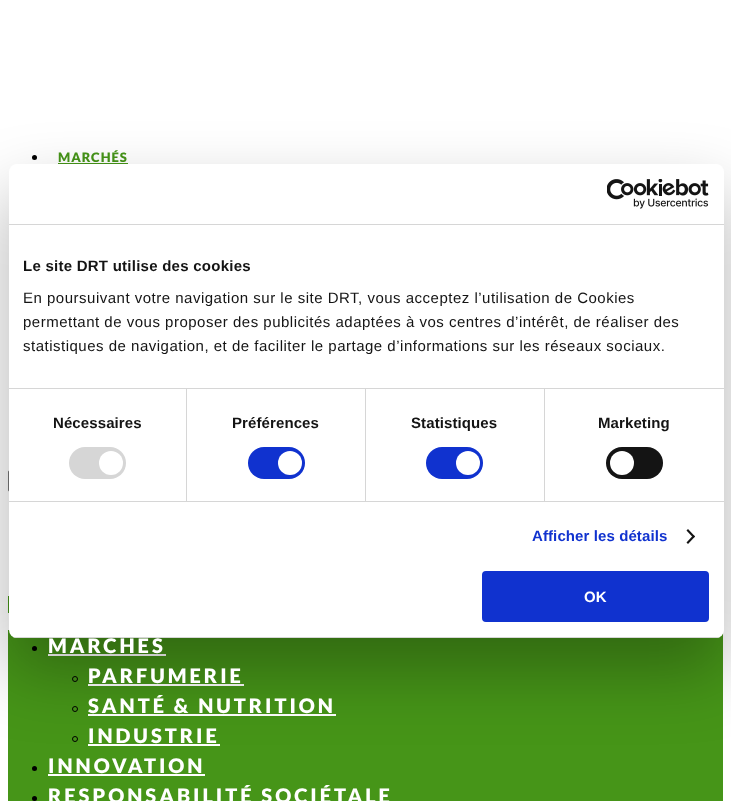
<!DOCTYPE html>
<meta charset="utf-8">
<style>body { margin: 0 } canvas { display: block }</style>
<canvas id="canvas" width="731" height="801"></canvas>
<script type="module">
  const canvas = document.getElementById("canvas");
  const ctx = canvas.getContext("2d");
  ctx.miterLimit = 4;
  ctx.fontKerning = "normal";
  async function loadImage(src) {
    const img = new Image();
    img.src = src;
    await img.decode();
    return img;
  }

  ctx.fillStyle = "#ffffff";
  ctx.fillRect(0, 0, 731, 801);
  ctx.fillStyle = "#000000";
  ctx.beginPath();
  ctx.arc(34.5, 157.5, 2.5, 0, Math.PI * 2);
  ctx.fill();
  ctx.letterSpacing = "1px";
  ctx.font = "900 13px Lato";
  ctx.fillStyle = "#469518";
  ctx.fillText("MARCHÉS", 58, 162);
  ctx.fillRect(58, 163, 70, 1);
  ctx.beginPath();
  ctx.roundRect(8.5, 470.5, 188, 21, 1.5);
  ctx.strokeStyle = "#767676";
  ctx.stroke();
  ctx.fillRect(8, 596, 1, 17);
  ctx.fillRect(8, 630, 715, 171);
  ctx.fillStyle = "#000000";
  ctx.beginPath();
  ctx.arc(34.5, 648.5, 2.5, 0, Math.PI * 2);
  ctx.fill();
  ctx.fillStyle = "#ffffff";
  ctx.fillRect(48, 654, 118, 2);
  ctx.beginPath();
  ctx.arc(75, 679, 2.5, 0, Math.PI * 2);
  ctx.strokeStyle = "#000000";
  ctx.stroke();
  ctx.fillRect(88, 684, 156, 2);
  ctx.beginPath();
  ctx.arc(75, 709, 2.5, 0, Math.PI * 2);
  ctx.stroke();
  ctx.fillRect(88, 714, 248, 2);
  ctx.beginPath();
  ctx.arc(75, 739, 2.5, 0, Math.PI * 2);
  ctx.stroke();
  ctx.fillRect(88, 744, 132, 2);
  ctx.fillStyle = "#000000";
  ctx.beginPath();
  ctx.arc(34.5, 768.5, 2.5, 0, Math.PI * 2);
  ctx.fill();
  ctx.fillStyle = "rgba(0, 0, 0, 0.3)";
  ctx.filter = "blur(34px)";
  ctx.beginPath();
  ctx.roundRect(9, 196, 715, 474, 8);
  ctx.fill();
  ctx.filter = "none";
  ctx.fillStyle = "#ffffff";
  ctx.beginPath();
  ctx.roundRect(9, 164, 715, 474, 8);
  ctx.fill();
  ctx.fillStyle = "#d6d6d6";
  ctx.fillRect(9, 224, 715, 1);
  ctx.drawImage(await loadImage("img1.png"), 607, 179, 102, 30);
  ctx.fillRect(9, 388, 715, 1);
  ctx.letterSpacing = "0.25px";
  ctx.font = "bold 15px Liberation Sans";
  ctx.fillStyle = "#141414";
  ctx.fillText("Le site DRT utilise des cookies", 23, 271);
  ctx.letterSpacing = "0.5px";
  ctx.font = "15px Liberation Sans";
  ctx.fillText("En poursuivant votre navigation sur le site DRT, vous acceptez l’utilisation de Cookies", 23, 303);
  ctx.fillText("permettant de vous proposer des publicités adaptées à vos centres d’intérêt, de réaliser des", 23, 327);
  ctx.fillText("statistiques de navigation, et de faciliter le partage d’informations sur les réseaux sociaux.", 23, 351);
  ctx.fillStyle = "#d6d6d6";
  ctx.fillRect(9, 501, 715, 1);
  ctx.fillRect(186, 389, 1, 112);
  ctx.letterSpacing = "0.1px";
  ctx.font = "bold 15px Liberation Sans";
  ctx.fillStyle = "#141414";
  ctx.fillText("Nécessaires", 53, 428);
  ctx.fillStyle = "#d6d6d6";
  ctx.beginPath();
  ctx.roundRect(69, 447, 57, 32, 16);
  ctx.fill();
  ctx.fillStyle = "#ffffff";
  ctx.beginPath();
  ctx.arc(111, 463, 12, 0, Math.PI * 2);
  ctx.fill();
  ctx.fillStyle = "#d6d6d6";
  ctx.fillRect(365, 389, 1, 112);
  ctx.fillStyle = "#141414";
  ctx.fillText("Préférences", 232, 428);
  ctx.fillStyle = "#1032cf";
  ctx.beginPath();
  ctx.roundRect(248, 447, 57, 32, 16);
  ctx.fill();
  ctx.fillStyle = "#ffffff";
  ctx.beginPath();
  ctx.arc(290, 463, 12, 0, Math.PI * 2);
  ctx.fill();
  ctx.fillStyle = "#d6d6d6";
  ctx.fillRect(544, 389, 1, 112);
  ctx.fillStyle = "#141414";
  ctx.fillText("Statistiques", 411, 428);
  ctx.fillStyle = "#1032cf";
  ctx.beginPath();
  ctx.roundRect(426, 447, 57, 32, 16);
  ctx.fill();
  ctx.fillStyle = "#ffffff";
  ctx.beginPath();
  ctx.arc(468, 463, 12, 0, Math.PI * 2);
  ctx.fill();
  ctx.fillStyle = "#141414";
  ctx.fillText("Marketing", 598, 428);
  ctx.beginPath();
  ctx.roundRect(606, 447, 57, 32, 16);
  ctx.fill();
  ctx.fillStyle = "#ffffff";
  ctx.beginPath();
  ctx.arc(622, 463, 12, 0, Math.PI * 2);
  ctx.fill();
  ctx.fillStyle = "#1032cf";
  ctx.fillText("Afficher les détails", 532, 541);
  ctx.fillStyle = "#141414";
  ctx.beginPath();
  ctx.moveTo(688, 529);
  ctx.lineTo(695, 536.5);
  ctx.lineTo(693.5, 538);
  ctx.lineTo(686.5, 530.5);
  ctx.closePath();
  ctx.fill();
  ctx.beginPath();
  ctx.moveTo(693.5, 535);
  ctx.lineTo(695, 536.5);
  ctx.lineTo(688, 544);
  ctx.lineTo(686.5, 542.5);
  ctx.closePath();
  ctx.fill();
  ctx.letterSpacing = "3px";
  ctx.font = "900 20px Lato";
  ctx.fillStyle = "#ffffff";
  ctx.fillText("MARCHÉS", 48, 653);
  ctx.save();
  ctx.beginPath();
  ctx.roundRect(9, 164, 715, 474, 8);
  ctx.clip();
  ctx.fillStyle = "#d6d6d6";
  ctx.fillRect(9, 637, 715, 1);
  ctx.restore();
  ctx.fillStyle = "#1032cf";
  ctx.beginPath();
  ctx.roundRect(483, 572, 225, 49, 3);
  ctx.fill();
  ctx.strokeStyle = "#1032cf";
  ctx.lineWidth = 2;
  ctx.stroke();
  ctx.letterSpacing = "0px";
  ctx.font = "bold 15px Liberation Sans";
  ctx.fillStyle = "#ffffff";
  ctx.fillText("OK", 584, 602);
  ctx.letterSpacing = "3px";
  ctx.font = "900 20px Lato";
  ctx.fillText("PARFUMERIE", 88, 683);
  ctx.fillText("SANTÉ & NUTRITION", 88, 713);
  ctx.fillText("INDUSTRIE", 88, 743);
  ctx.fillText("INNOVATION", 48, 773);
  ctx.fillRect(48, 774, 157, 2);
  ctx.fillStyle = "#000000";
  ctx.beginPath();
  ctx.arc(34.5, 798.5, 2.5, 0, Math.PI * 2);
  ctx.fill();
  ctx.fillStyle = "#ffffff";
  ctx.fillText("RESPONSABILITÉ SOCIÉTALE", 48, 803);
</script>
